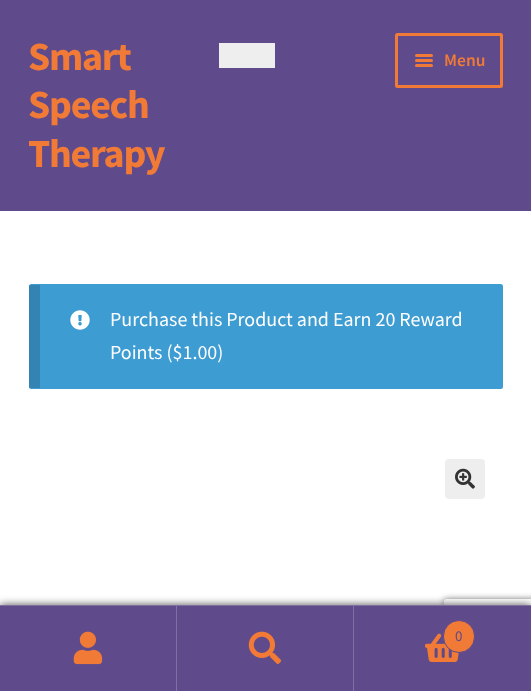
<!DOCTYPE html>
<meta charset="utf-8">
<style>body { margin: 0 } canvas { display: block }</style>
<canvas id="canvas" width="531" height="691"></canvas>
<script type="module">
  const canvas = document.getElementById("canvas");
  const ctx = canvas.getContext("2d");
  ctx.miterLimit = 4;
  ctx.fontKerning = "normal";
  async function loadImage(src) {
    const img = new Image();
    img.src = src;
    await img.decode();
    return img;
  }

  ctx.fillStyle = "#ffffff";
  ctx.fillRect(0, 0, 531, 691);
  ctx.fillStyle = "#5f4b8b";
  ctx.fillRect(0, 0, 531, 211);
  ctx.letterSpacing = "-1.25px";
  ctx.font = "bold 40px Source Sans Pro";
  ctx.fillStyle = "#f17a36";
  ctx.fillText("Smart", 28, 70);
  ctx.fillText("Speech", 28, 118);
  ctx.fillText("Therapy", 28, 167);
  ctx.fillStyle = "#eeeeee";
  ctx.fillRect(219, 43, 56, 25);
  ctx.beginPath();
  ctx.roundRect(396.5, 34.5, 105, 52, 1);
  ctx.strokeStyle = "#f17a36";
  ctx.lineWidth = 3;
  ctx.stroke();
  ctx.fillStyle = "#f17a36";
  ctx.beginPath();
  ctx.roundRect(415, 54, 18, 3, 1.5);
  ctx.fill();
  ctx.beginPath();
  ctx.roundRect(415, 59, 18, 3, 1.5);
  ctx.fill();
  ctx.letterSpacing = "0px";
  ctx.font = "600 17.5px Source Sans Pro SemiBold";
  ctx.fillText("Menu", 444, 66);
  ctx.beginPath();
  ctx.roundRect(415, 64, 18, 3, 1.5);
  ctx.fill();
  ctx.fillStyle = "#3d9cd2";
  ctx.beginPath();
  ctx.roundRect(29, 284, 474, 105, 2.5);
  ctx.fill();
  ctx.fillStyle = "rgba(0, 0, 0, 0.15)";
  ctx.fillRect(29, 285, 11, 103);
  ctx.drawImage(await loadImage("img1.png"), 70, 310, 20, 20);
  ctx.font = "20px Source Sans Pro";
  ctx.fillStyle = "#ffffff";
  ctx.fillText("Purchase this Product and Earn 20 Reward", 110, 326);
  ctx.fillText("Points ($1.00)", 110, 359);
  ctx.fillStyle = "#eeeeee";
  ctx.beginPath();
  ctx.roundRect(445, 459, 40, 40, 4);
  ctx.fill();
  ctx.drawImage(await loadImage("img2.png"), 455, 468, 20, 21);
  ctx.fillStyle = "rgba(0, 0, 0, 0.7)";
  ctx.filter = "blur(4px)";
  ctx.beginPath();
  ctx.rect(0, 605, 531, 86);
  ctx.fill();
  ctx.filter = "none";
  ctx.save();
  ctx.beginPath();
  ctx.moveTo(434, 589);
  ctx.lineTo(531, 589);
  ctx.lineTo(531, 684);
  ctx.lineTo(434, 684);
  ctx.closePath();
  ctx.moveTo(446.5, 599);
  ctx.lineTo(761.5, 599);
  ctx.bezierCurveTo(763, 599, 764, 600, 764, 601.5);
  ctx.lineTo(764, 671.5);
  ctx.bezierCurveTo(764, 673, 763, 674, 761.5, 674);
  ctx.lineTo(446.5, 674);
  ctx.bezierCurveTo(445, 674, 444, 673, 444, 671.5);
  ctx.lineTo(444, 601.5);
  ctx.bezierCurveTo(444, 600, 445, 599, 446.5, 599);
  ctx.closePath();
  ctx.clip("evenodd");
  ctx.fillStyle = "#808080";
  ctx.filter = "blur(3px)";
  ctx.beginPath();
  ctx.roundRect(444, 599, 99, 75, 2.5);
  ctx.fill();
  ctx.filter = "none";
  ctx.restore();
  ctx.fillStyle = "#7f6fa2";
  ctx.fillRect(0, 605, 531, 1);
  ctx.fillStyle = "#5f4b8b";
  ctx.fillRect(0, 606, 353, 85);
  ctx.fillStyle = "#7f6fa2";
  ctx.fillRect(176, 606, 1, 85);
  ctx.drawImage(await loadImage("img3.png"), 73, 631, 30, 34);
  ctx.fillRect(353, 606, 1, 85);
  ctx.drawImage(await loadImage("img4.png"), 248, 631, 34, 33);
  ctx.fillStyle = "#5f4b8b";
  ctx.fillRect(354, 606, 177, 85);
  ctx.drawImage(await loadImage("img5.png"), 425, 633, 34, 29);
  ctx.fillStyle = "#f17a36";
  ctx.beginPath();
  ctx.roundRect(443.5, 620.5, 31, 32, 15.5);
  ctx.fill();
  ctx.strokeStyle = "#5f4b8b";
  ctx.lineWidth = 1;
  ctx.stroke();
  ctx.font = "15px Source Sans Pro";
  ctx.fillStyle = "#5f4b8b";
  ctx.fillText("0", 455, 641);
</script>
